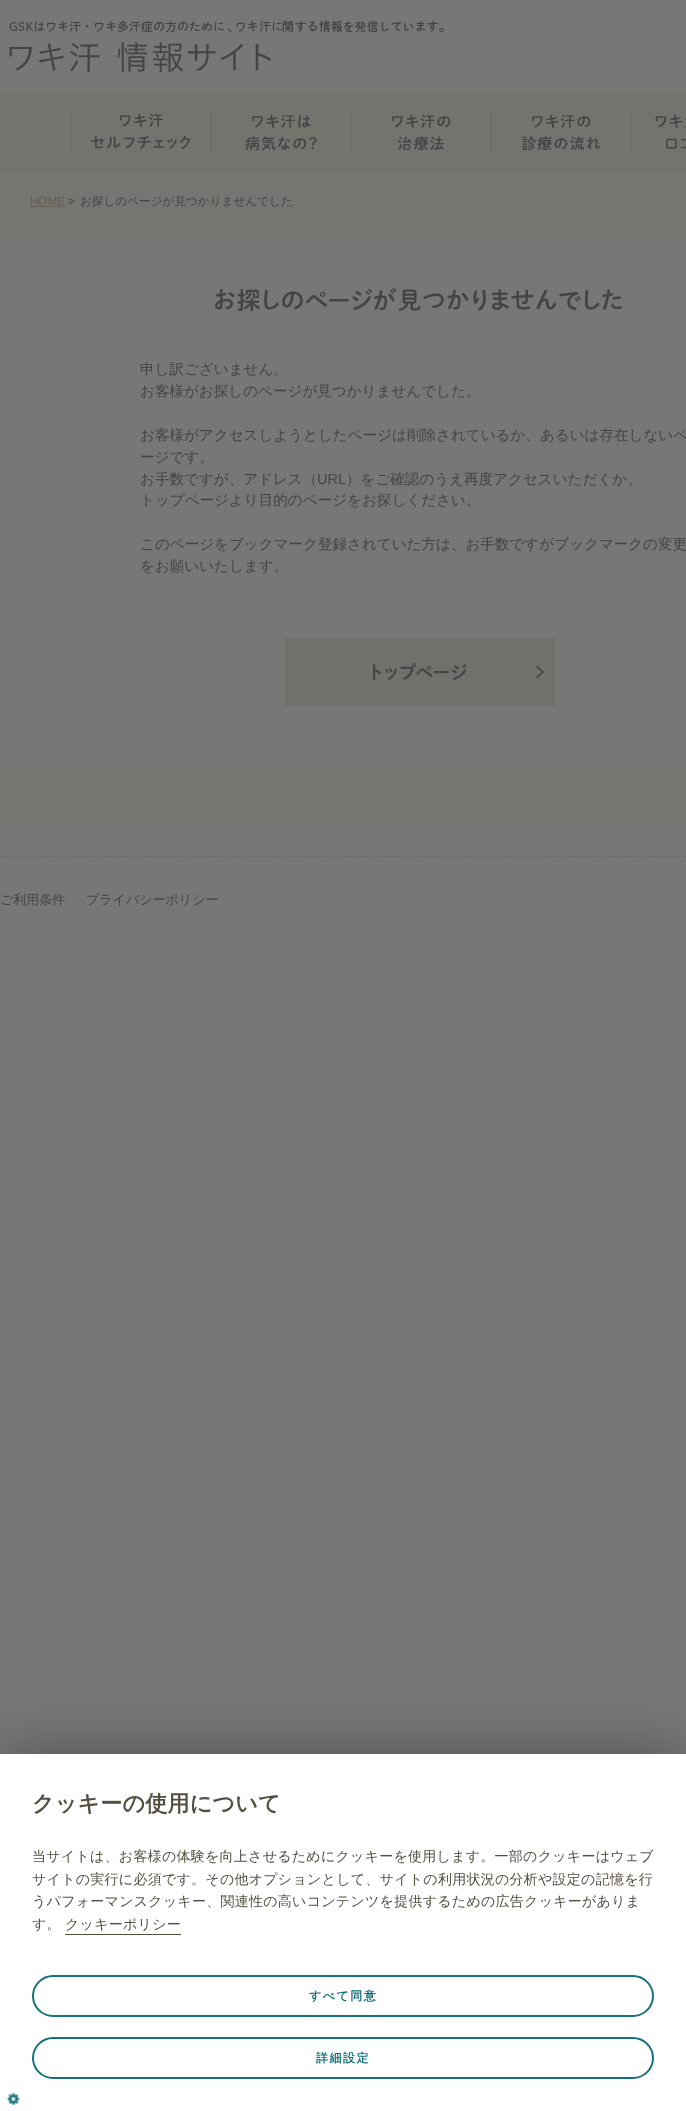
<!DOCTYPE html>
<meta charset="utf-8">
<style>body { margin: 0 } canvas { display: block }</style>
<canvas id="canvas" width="686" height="2111"></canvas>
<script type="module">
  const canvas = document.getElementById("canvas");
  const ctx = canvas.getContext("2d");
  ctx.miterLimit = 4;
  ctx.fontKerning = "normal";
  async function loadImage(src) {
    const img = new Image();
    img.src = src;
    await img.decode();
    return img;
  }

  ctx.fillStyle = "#777777";
  ctx.fillRect(0, 0, 686, 2111);
  ctx.drawImage(await loadImage("img1.png"), 9, 20, 435, 53);
  ctx.fillStyle = "#75736e";
  ctx.fillRect(0, 92, 686, 80);
  ctx.drawImage(await loadImage("img2.png"), 70, 111, 120, 44);
  ctx.drawImage(await loadImage("img3.png"), 210, 111, 107, 44);
  ctx.drawImage(await loadImage("img4.png"), 350, 111, 101, 44);
  ctx.drawImage(await loadImage("img5.png"), 490, 111, 111, 44);
  ctx.drawImage(await loadImage("img6.png"), 630, 111, 56, 44);
  ctx.fillStyle = "#777572";
  ctx.fillRect(0, 172, 686, 654);
  ctx.font = "11.6px Liberation Sans";
  ctx.fillStyle = "#635d55";
  ctx.fillText("HOME", 30, 205);
  ctx.fillRect(30, 206, 35, 1);
  ctx.fillStyle = "#444444";
  ctx.fillText(">", 68, 205);
  ctx.font = "500 11.6px WenQuanYi Zen Hei";
  ctx.fillText("お探しのページが見つかりませんでした", 80, 205);
  ctx.fillStyle = "#777777";
  ctx.fillRect(0, 239, 686, 527);
  ctx.drawImage(await loadImage("img7.png"), 189, 288, 433, 71);
  ctx.font = "500 14.55px WenQuanYi Zen Hei";
  ctx.fillStyle = "#444444";
  ctx.fillText("申し訳ございません。", 140, 374);
  ctx.fillText("お客様がお探しのページが見つかりませんでした。", 140, 396);
  ctx.fillText("お客様がアクセスしようとしたページは削除されているか、あるいは存在しないペ", 140, 440);
  ctx.fillText("ージです。", 140, 462);
  ctx.fillText("お手数ですが、アドレス（", 140, 484);
  ctx.font = "14.55px Liberation Sans";
  ctx.fillText("URL", 317, 484);
  ctx.font = "500 14.55px WenQuanYi Zen Hei";
  ctx.fillText("）をご確認のうえ再度アクセスいただくか、", 346, 484);
  ctx.fillText("トップページより目的のページをお探しください。", 140, 505);
  ctx.fillText("このページをブックマーク登録されていた方は、お手数ですがブックマークの変更", 140, 549);
  ctx.fillText("をお願いいたします。", 140, 571);
  ctx.drawImage(await loadImage("img8.png"), 285, 638, 270, 68);
  ctx.beginPath();
  ctx.moveTo(0, 856.5);
  ctx.lineTo(686, 856.5);
  ctx.strokeStyle = "#6d6b66";
  ctx.setLineDash([3, 1.99]);
  ctx.stroke();
  ctx.font = "500 13px WenQuanYi Zen Hei";
  ctx.fillText("ご利用条件", 0, 904);
  ctx.fillText("プライバシーポリシー", 86, 904);
  ctx.fillStyle = "rgba(0, 0, 0, 0.3)";
  ctx.filter = "blur(30px)";
  ctx.beginPath();
  ctx.rect(0, 1754, 686, 357);
  ctx.fill();
  ctx.filter = "none";
  ctx.fillStyle = "#ffffff";
  ctx.fillRect(0, 1754, 686, 357);
  ctx.letterSpacing = "0.25px";
  ctx.font = "bold 22px WenQuanYi Zen Hei";
  ctx.fillStyle = "#544f40";
  ctx.fillText("クッキーの使用について", 32, 1811);
  ctx.font = "500 14px WenQuanYi Zen Hei";
  ctx.fillText("当サイトは、お客様の体験を向上させるためにクッキーを使用します。一部のクッキーはウェブ", 32, 1861);
  ctx.fillText("サイトの実行に必須です。その他オプションとして、サイトの利用状況の分析や設定の記憶を行", 32, 1884);
  ctx.fillText("うパフォーマンスクッキー、関連性の高いコンテンツを提供するための広告クッキーがありま", 32, 1906);
  ctx.fillText("す。", 32, 1929);
  ctx.fillText("クッキーポリシー", 65, 1929);
  ctx.fillRect(65, 1934, 116, 1);
  ctx.beginPath();
  ctx.roundRect(33, 1976, 620, 40, 20);
  ctx.strokeStyle = "#15717d";
  ctx.lineWidth = 2;
  ctx.setLineDash([]);
  ctx.stroke();
  ctx.letterSpacing = "1.5px";
  ctx.font = "bold 12px WenQuanYi Zen Hei";
  ctx.fillStyle = "#15717d";
  ctx.fillText("すべて同意", 309, 2000);
  ctx.beginPath();
  ctx.roundRect(33, 2038, 620, 40, 20);
  ctx.stroke();
  ctx.fillText("詳細設定", 316, 2062);
  ctx.drawImage(await loadImage("img9.png"), 6, 2092, 15, 14);
</script>
